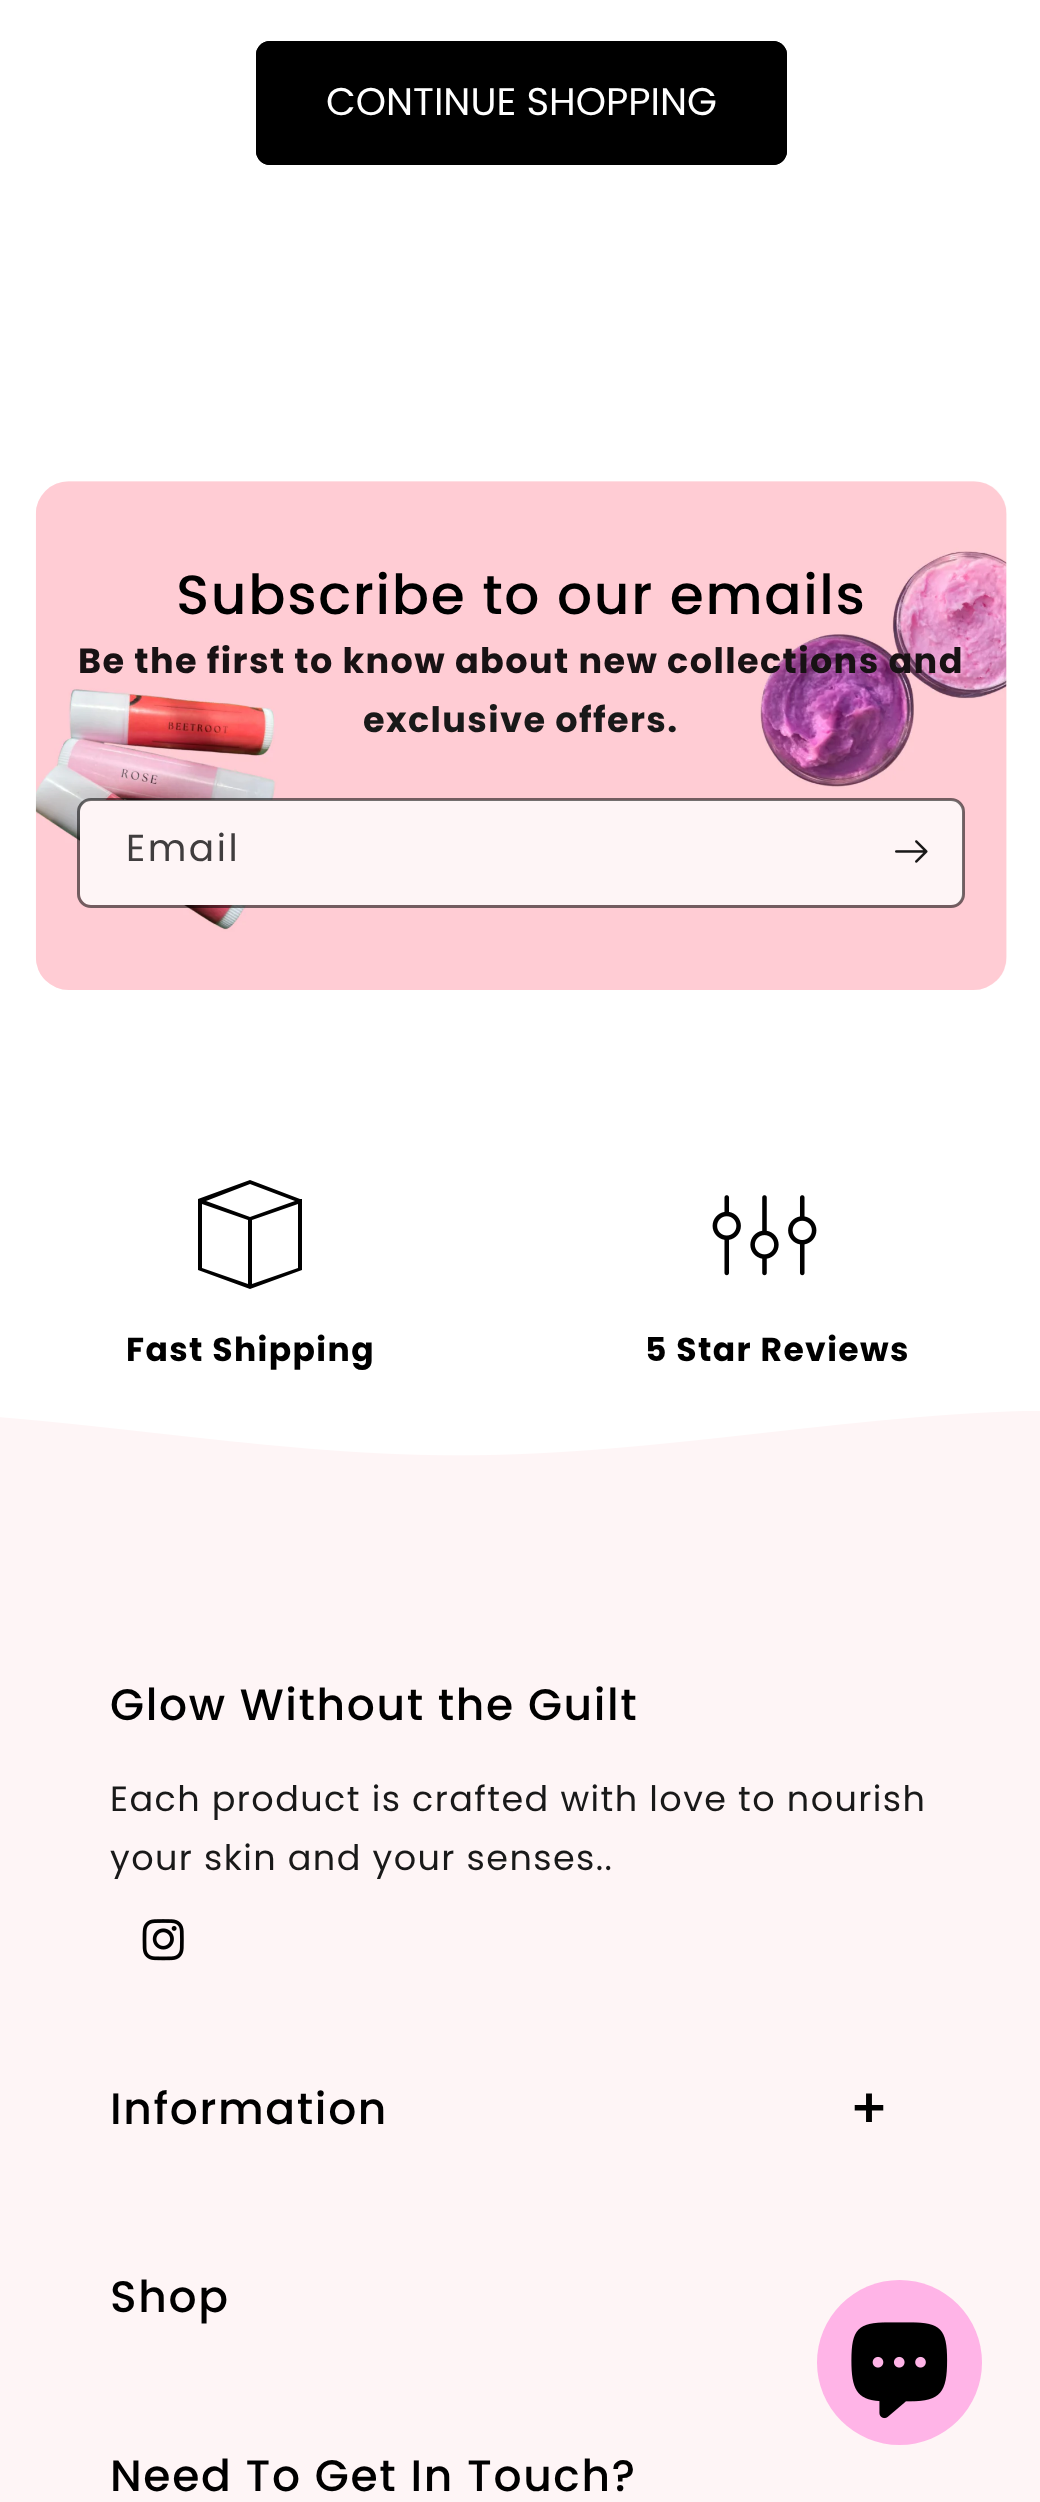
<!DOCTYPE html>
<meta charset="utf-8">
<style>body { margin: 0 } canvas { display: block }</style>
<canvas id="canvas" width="1040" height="2502"></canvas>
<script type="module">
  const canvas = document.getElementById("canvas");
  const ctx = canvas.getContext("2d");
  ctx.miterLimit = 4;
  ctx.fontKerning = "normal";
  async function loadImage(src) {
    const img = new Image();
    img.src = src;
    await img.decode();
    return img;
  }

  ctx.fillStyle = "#ffffff";
  ctx.fillRect(0, 0, 1040, 2502);
  ctx.fillStyle = "#000000";
  ctx.beginPath();
  ctx.roundRect(256, 41, 531, 124, 14);
  ctx.fill();
  ctx.beginPath();
  ctx.roundRect(257.5, 42.5, 528, 121, 12.5);
  ctx.strokeStyle = "#000000";
  ctx.lineWidth = 3;
  ctx.stroke();
  ctx.font = "38.5px Poppins";
  ctx.fillStyle = "#ffffff";
  ctx.fillText("CONTINUE SHOPPING", 326, 115);
  ctx.fillStyle = "#fef5f6";
  ctx.beginPath();
  ctx.roundRect(36, 481, 971, 509, 33);
  ctx.fill();
  ctx.drawImage(await loadImage("img1.png"), 35, 481, 972, 509);
  ctx.letterSpacing = "1.65px";
  ctx.font = "500 55px Poppins";
  ctx.fillStyle = "#000000";
  ctx.fillText("Subscribe to our emails", 176, 614);
  ctx.letterSpacing = "1.4px";
  ctx.font = "bold 35.05px Poppins";
  ctx.fillStyle = "#181214";
  ctx.fillText("Be the first to know about new collections and", 78, 673);
  ctx.fillStyle = "#191919";
  ctx.fillText("exclusive offers.", 363, 732);
  ctx.fillStyle = "#fef5f6";
  ctx.beginPath();
  ctx.roundRect(80, 800, 883, 105, 11);
  ctx.fill();
  ctx.beginPath();
  ctx.roundRect(78.5, 799.5, 885, 107, 12.5);
  ctx.strokeStyle = "rgba(0, 0, 0, 0.55)";
  ctx.stroke();
  ctx.letterSpacing = "2.5px";
  ctx.font = "37.5px Poppins";
  ctx.fillStyle = "#403d3e";
  ctx.fillText("Email", 126, 861);
  ctx.drawImage(await loadImage("img2.png"), 895, 840, 33, 23);
  ctx.fillStyle = "#000000";
  ctx.beginPath();
  ctx.moveTo(300, 1199);
  ctx.lineTo(250, 1180);
  ctx.lineTo(198, 1199);
  ctx.lineTo(198, 1270);
  ctx.lineTo(250, 1289);
  ctx.lineTo(302, 1270);
  ctx.lineTo(302, 1199);
  ctx.closePath();
  ctx.moveTo(248, 1284);
  ctx.lineTo(202, 1268);
  ctx.lineTo(202, 1204);
  ctx.lineTo(248, 1220);
  ctx.closePath();
  ctx.moveTo(250, 1217);
  ctx.lineTo(206, 1201);
  ctx.lineTo(250, 1184);
  ctx.lineTo(295, 1201);
  ctx.closePath();
  ctx.moveTo(298, 1268);
  ctx.lineTo(252, 1284);
  ctx.lineTo(252, 1220);
  ctx.lineTo(298, 1204);
  ctx.closePath();
  ctx.fill();
  ctx.letterSpacing = "1.4px";
  ctx.font = "bold 33px Poppins";
  ctx.fillText("Fast Shipping", 126, 1361);
  ctx.drawImage(await loadImage("img3.png"), 712, 1195, 105, 81);
  ctx.fillText("5 Star Reviews", 645, 1361);
  ctx.drawImage(await loadImage("img4.png"), 0, 1411, 1040, 63);
  ctx.fillStyle = "#fef5f6";
  ctx.fillRect(0, 1474, 1040, 1028);
  ctx.letterSpacing = "1.65px";
  ctx.font = "500 44px Poppins";
  ctx.fillStyle = "#000000";
  ctx.fillText("Glow Without the Guilt", 110, 1720);
  ctx.letterSpacing = "1.4px";
  ctx.font = "35.05px Poppins";
  ctx.fillStyle = "#191919";
  ctx.fillText("Each product is crafted with love to nourish", 110, 1811);
  ctx.fillText("your skin and your senses..", 110, 1870);
  ctx.drawImage(await loadImage("img5.png"), 142, 1919, 42, 42);
  ctx.letterSpacing = "1.65px";
  ctx.font = "500 44px Poppins";
  ctx.fillStyle = "#000000";
  ctx.fillText("Information", 110, 2124);
  ctx.font = "500 56px Poppins";
  ctx.fillText("+", 849, 2128);
  ctx.font = "500 44px Poppins";
  ctx.fillText("Shop", 110, 2312);
  ctx.fillText("Need To Get In Touch?", 110, 2491);
  ctx.fillStyle = "#ffb4e7";
  ctx.beginPath();
  ctx.arc(899.5, 2362.5, 82.5, 0, Math.PI * 2);
  ctx.fill();
  ctx.drawImage(await loadImage("img6.png"), 851, 2322, 97, 97);
</script>
